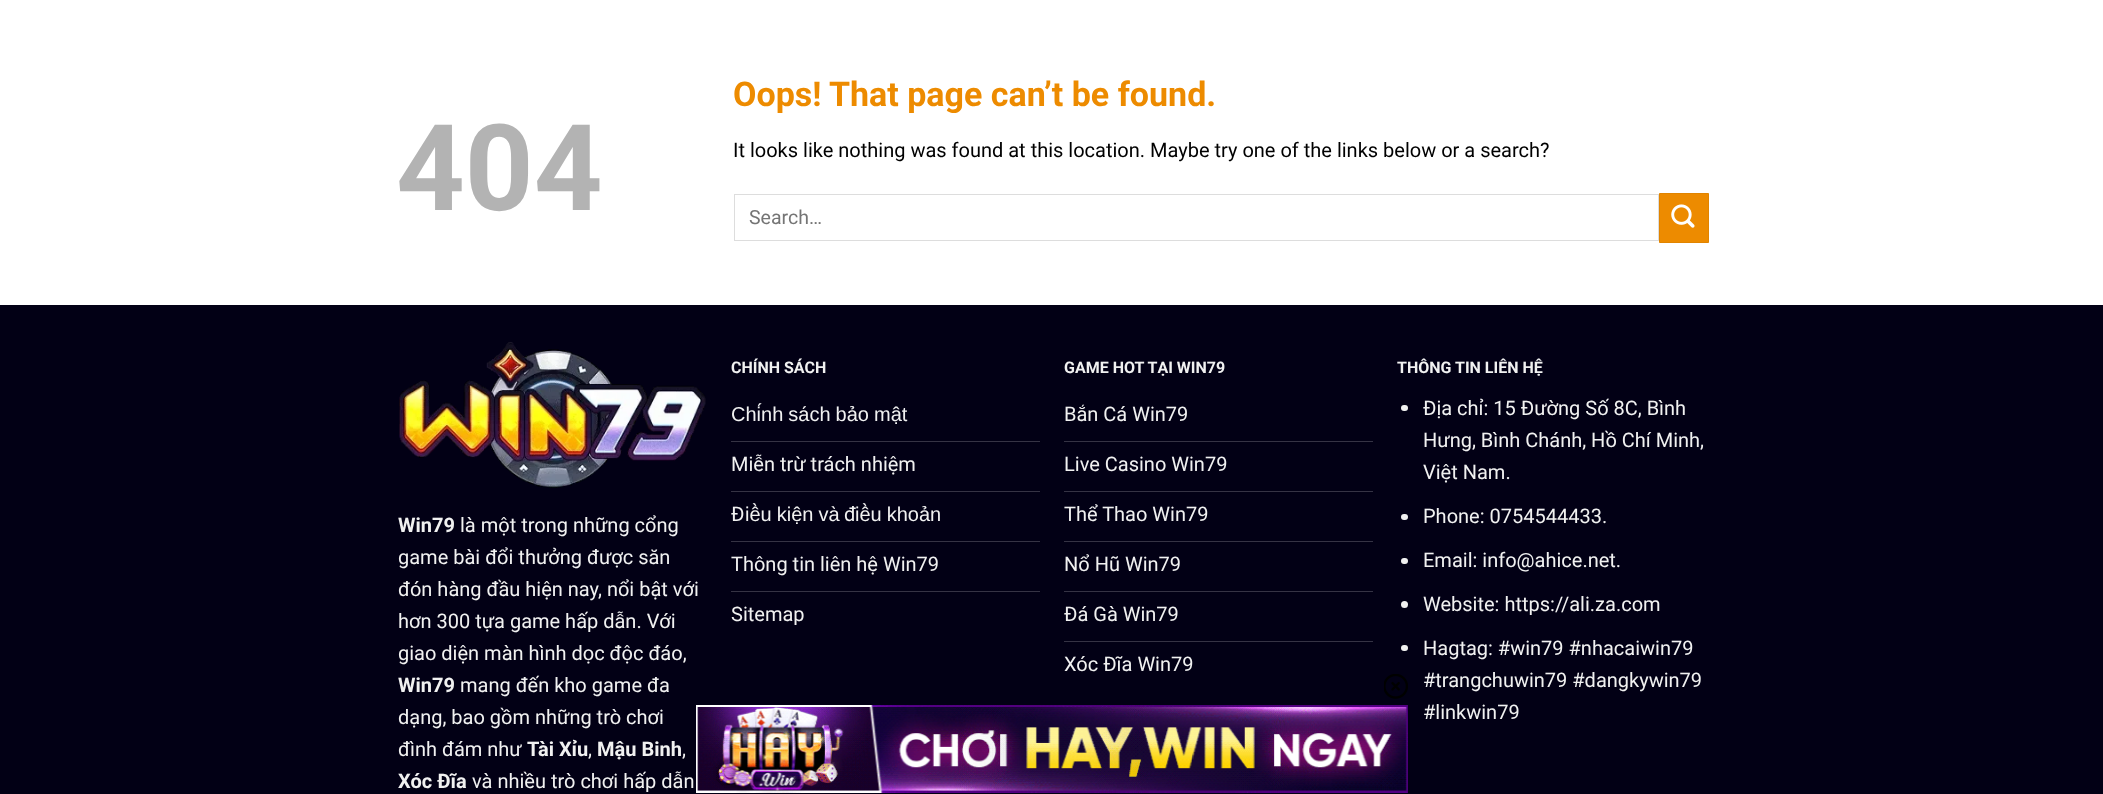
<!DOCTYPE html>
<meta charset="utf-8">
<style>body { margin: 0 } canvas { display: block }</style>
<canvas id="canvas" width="2103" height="794"></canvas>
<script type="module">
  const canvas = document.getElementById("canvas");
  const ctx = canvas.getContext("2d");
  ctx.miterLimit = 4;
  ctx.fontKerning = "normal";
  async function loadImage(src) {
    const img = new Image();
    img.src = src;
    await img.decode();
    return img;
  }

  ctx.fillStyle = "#ffffff";
  ctx.fillRect(0, 0, 2103, 794);
  ctx.font = "bold 120px Roboto";
  ctx.fillStyle = "#b3b3b3";
  ctx.fillText("404", 396, 210);
  ctx.font = "bold 34px Roboto";
  ctx.fillStyle = "#ed8b00";
  ctx.fillText("Oops! That page can’t be found.", 733, 106);
  ctx.font = "20px Roboto";
  ctx.fillStyle = "#000000";
  ctx.fillText("It looks like nothing was found at this location. Maybe try one of the links below or a search?", 733, 157);
  ctx.strokeStyle = "#dddddd";
  ctx.strokeRect(734.5, 194.5, 924, 46);
  ctx.font = "19.5px Roboto";
  ctx.fillStyle = "#757575";
  ctx.fillText("Search…", 749, 224);
  ctx.fillStyle = "#ed8b00";
  ctx.beginPath();
  ctx.rect(1659.5, 193.5, 49, 49);
  ctx.fill();
  ctx.strokeStyle = "#e18400";
  ctx.stroke();
  ctx.drawImage(await loadImage("img1.png"), 1671, 204, 24, 24);
  ctx.fillStyle = "#020015";
  ctx.fillRect(0, 305, 2103, 489);
  ctx.drawImage(await loadImage("img2.png"), 399, 342, 307, 146);
  ctx.font = "bold 20px Roboto";
  ctx.fillStyle = "#f1f1f1";
  ctx.fillText("Win79", 398, 532);
  ctx.font = "20px Roboto";
  ctx.fillText("là một trong những cổng", 460, 532);
  ctx.fillText("game bài đổi thưởng được săn", 398, 564);
  ctx.fillText("đón hàng đầu hiện nay, nổi bật với", 398, 596);
  ctx.fillText("hơn 300 tựa game hấp dẫn. Với", 398, 628);
  ctx.fillText("giao diện màn hình dọc độc đáo,", 398, 660);
  ctx.font = "bold 20px Roboto";
  ctx.fillText("Win79", 398, 692);
  ctx.font = "20px Roboto";
  ctx.fillText("mang đến kho game đa", 460, 692);
  ctx.fillText("dạng, bao gồm những trò chơi", 398, 724);
  ctx.fillText("đình đám như", 398, 756);
  ctx.font = "bold 20px Roboto";
  ctx.fillText("Tài Xỉu", 527, 756);
  ctx.font = "20px Roboto";
  ctx.fillText(",", 588, 756);
  ctx.font = "bold 20px Roboto";
  ctx.fillText("Mậu Binh", 597, 756);
  ctx.font = "20px Roboto";
  ctx.fillText(",", 682, 756);
  ctx.font = "bold 20px Roboto";
  ctx.fillText("Xóc Đĩa", 398, 788);
  ctx.font = "20px Roboto";
  ctx.fillText("và nhiều trò chơi hấp dẫn", 472, 788);
  ctx.font = "bold 16px Roboto";
  ctx.fillText("CHÍNH SÁCH", 731, 373);
  ctx.fillStyle = "#353344";
  ctx.fillRect(731, 441, 309, 1);
  ctx.wordSpacing = "-0.5px";
  ctx.font = "20px Liberation Sans";
  ctx.fillStyle = "#f1f1f1";
  ctx.fillText("Chính sách bảo mật", 731, 421);
  ctx.fillStyle = "#353344";
  ctx.fillRect(731, 491, 309, 1);
  ctx.wordSpacing = "0px";
  ctx.font = "20px Roboto";
  ctx.fillStyle = "#f1f1f1";
  ctx.fillText("Miễn trừ trách nhiệm", 731, 471);
  ctx.fillStyle = "#353344";
  ctx.fillRect(731, 541, 309, 1);
  ctx.fillStyle = "#f1f1f1";
  ctx.fillText("Đ", 731, 521);
  ctx.wordSpacing = "-0.5px";
  ctx.font = "20px Liberation Sans";
  ctx.fillText("iều kiện và", 745, 521);
  ctx.wordSpacing = "0px";
  ctx.font = "20px Roboto";
  ctx.fillText("đ", 844, 521);
  ctx.wordSpacing = "-0.5px";
  ctx.font = "20px Liberation Sans";
  ctx.fillText("iều khoản", 855, 521);
  ctx.fillStyle = "#353344";
  ctx.fillRect(731, 591, 309, 1);
  ctx.wordSpacing = "0px";
  ctx.font = "20px Roboto";
  ctx.fillStyle = "#f1f1f1";
  ctx.fillText("Thông tin liên hệ Win79", 731, 571);
  ctx.fillText("Sitemap", 731, 621);
  ctx.font = "bold 16px Roboto";
  ctx.fillText("GAME HOT TẠI WIN79", 1064, 373);
  ctx.fillStyle = "#353344";
  ctx.fillRect(1064, 441, 309, 1);
  ctx.font = "20px Roboto";
  ctx.fillStyle = "#f1f1f1";
  ctx.fillText("Bắn Cá Win79", 1064, 421);
  ctx.fillStyle = "#353344";
  ctx.fillRect(1064, 491, 309, 1);
  ctx.fillStyle = "#f1f1f1";
  ctx.fillText("Live Casino Win79", 1064, 471);
  ctx.fillStyle = "#353344";
  ctx.fillRect(1064, 541, 309, 1);
  ctx.fillStyle = "#f1f1f1";
  ctx.fillText("Thể Thao Win79", 1064, 521);
  ctx.fillStyle = "#353344";
  ctx.fillRect(1064, 591, 309, 1);
  ctx.fillStyle = "#f1f1f1";
  ctx.fillText("Nổ Hũ Win79", 1064, 571);
  ctx.fillStyle = "#353344";
  ctx.fillRect(1064, 641, 309, 1);
  ctx.fillStyle = "#f1f1f1";
  ctx.fillText("Đá Gà Win79", 1064, 621);
  ctx.fillText("Xóc Đĩa Win79", 1064, 671);
  ctx.font = "bold 16px Roboto";
  ctx.fillText("THÔNG TIN LIÊN HỆ", 1397, 373);
  ctx.beginPath();
  ctx.roundRect(1401, 405, 7, 6, 3);
  ctx.fill();
  ctx.font = "20px Roboto";
  ctx.fillText("Địa chỉ: 15 Đường Số 8C, Bình", 1423, 415);
  ctx.fillText("Hưng, Bình Chánh, Hồ Chí Minh,", 1423, 447);
  ctx.fillText("Việt Nam.", 1423, 479);
  ctx.beginPath();
  ctx.roundRect(1401, 514, 7, 6, 3);
  ctx.fill();
  ctx.fillText("Phone: 0754544433.", 1423, 523);
  ctx.beginPath();
  ctx.roundRect(1401, 558, 7, 6, 3);
  ctx.fill();
  ctx.fillText("Email: info@ahice.net.", 1423, 567);
  ctx.beginPath();
  ctx.arc(1404.5, 604.5, 3.5, 0, Math.PI * 2);
  ctx.fill();
  ctx.fillText("Website: https://ali.za.com", 1423, 611);
  ctx.beginPath();
  ctx.roundRect(1401, 645, 7, 6, 3);
  ctx.fill();
  ctx.fillText("Hagtag: #win79 #nhacaiwin79", 1423, 655);
  ctx.fillText("#trangchuwin79 #dangkywin79", 1423, 687);
  ctx.fillText("#linkwin79", 1423, 719);
  ctx.drawImage(await loadImage("img3.png"), 1384, 674, 24, 25);
  ctx.drawImage(await loadImage("img4.png"), 696, 705, 712, 88);
</script>
